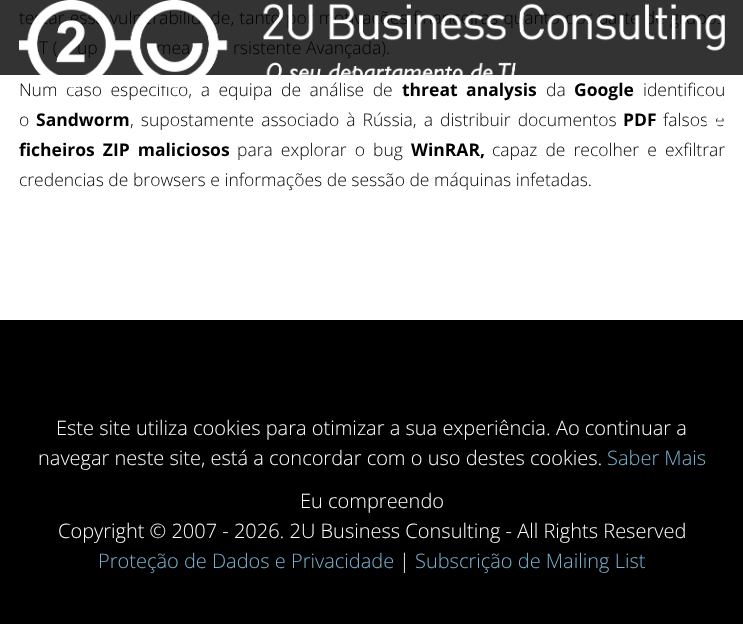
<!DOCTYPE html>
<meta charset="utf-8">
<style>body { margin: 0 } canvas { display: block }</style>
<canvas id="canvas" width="743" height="624"></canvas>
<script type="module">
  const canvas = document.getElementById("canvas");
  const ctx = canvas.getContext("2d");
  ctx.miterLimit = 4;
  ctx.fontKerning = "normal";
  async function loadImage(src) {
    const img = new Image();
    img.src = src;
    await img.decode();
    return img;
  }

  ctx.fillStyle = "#ffffff";
  ctx.fillRect(0, 0, 743, 624);
  ctx.fillStyle = "#333333";
  ctx.fillRect(0, 0, 743, 75);
  ctx.wordSpacing = "0.6px";
  ctx.font = "300 17.5px Open Sans";
  ctx.fillStyle = "#000000";
  ctx.fillText("testar essa vulnerabilidade, tanto por motivações financeiras quanto por parte de grupos", 19, 24);
  ctx.wordSpacing = "0px";
  ctx.fillText("T (", 39, 54);
  ctx.fillText("up", 77, 54);
  ctx.fillText("mea", 156, 54);
  ctx.fillText("rsistente Avançada).", 233, 54);
  ctx.wordSpacing = "4px";
  ctx.fillText("Num caso específico, a equipa de análise de", 19, 96);
  ctx.font = "bold 17.5px Open Sans";
  ctx.fillText("threat analysis", 402, 96);
  ctx.wordSpacing = "0px";
  ctx.font = "300 17.5px Open Sans";
  ctx.fillText("da", 546, 96);
  ctx.font = "bold 17.5px Open Sans";
  ctx.fillText("Google", 574, 96);
  ctx.font = "300 17.5px Open Sans";
  ctx.fillText("identificou", 643, 96);
  ctx.drawImage(await loadImage("img1.png"), 19, 0, 706, 88);
  ctx.wordSpacing = "2.5px";
  ctx.fillText("falsos e", 663, 126);
  ctx.drawImage(await loadImage("img2.png"), 706, 116, 18, 9);
  ctx.wordSpacing = "0px";
  ctx.fillText("o", 19, 126);
  ctx.font = "bold 17.5px Open Sans";
  ctx.fillText("Sandworm", 36, 126);
  ctx.wordSpacing = "2.5px";
  ctx.font = "300 17.5px Open Sans";
  ctx.fillText(", supostamente associado à Rússia, a distribuir documentos", 130, 126);
  ctx.wordSpacing = "0px";
  ctx.font = "bold 17.5px Open Sans";
  ctx.fillText("PDF", 623, 126);
  ctx.wordSpacing = "3.5px";
  ctx.fillText("ficheiros ZIP maliciosos", 19, 156);
  ctx.font = "300 17.5px Open Sans";
  ctx.fillText("para explorar o bug", 237, 156);
  ctx.wordSpacing = "0px";
  ctx.font = "bold 17.5px Open Sans";
  ctx.fillText("WinRAR,", 411, 156);
  ctx.wordSpacing = "3.5px";
  ctx.font = "300 17.5px Open Sans";
  ctx.fillText("capaz de recolher e exfiltrar", 492, 156);
  ctx.wordSpacing = "0px";
  ctx.fillText("credencias de browsers e informações de sessão de máquinas infetadas.", 19, 186);
  ctx.fillRect(0, 320, 743, 304);
  ctx.font = "300 20px Open Sans";
  ctx.fillStyle = "#ffffff";
  ctx.fillText("Este site utiliza cookies para otimizar a sua experiência. Ao continuar a", 56, 435);
  ctx.fillText("navegar neste site, está a concordar com o uso destes cookies.", 38, 465);
  ctx.fillStyle = "#7ab5d0";
  ctx.fillText("Saber Mais", 607, 465);
  ctx.fillStyle = "#ffffff";
  ctx.fillText("Eu compreendo", 300, 508);
  ctx.fillText("Copyright © 2007 - 2026. 2U Business Consulting - All Rights Reserved", 58, 538);
  ctx.fillStyle = "#7ab5d0";
  ctx.fillText("Proteção de Dados e Privacidade", 98, 568);
  ctx.fillStyle = "#ffffff";
  ctx.fillText("|", 399, 568);
  ctx.fillStyle = "#7ab5d0";
  ctx.fillText("Subscrição de Mailing List", 415, 568);
</script>
